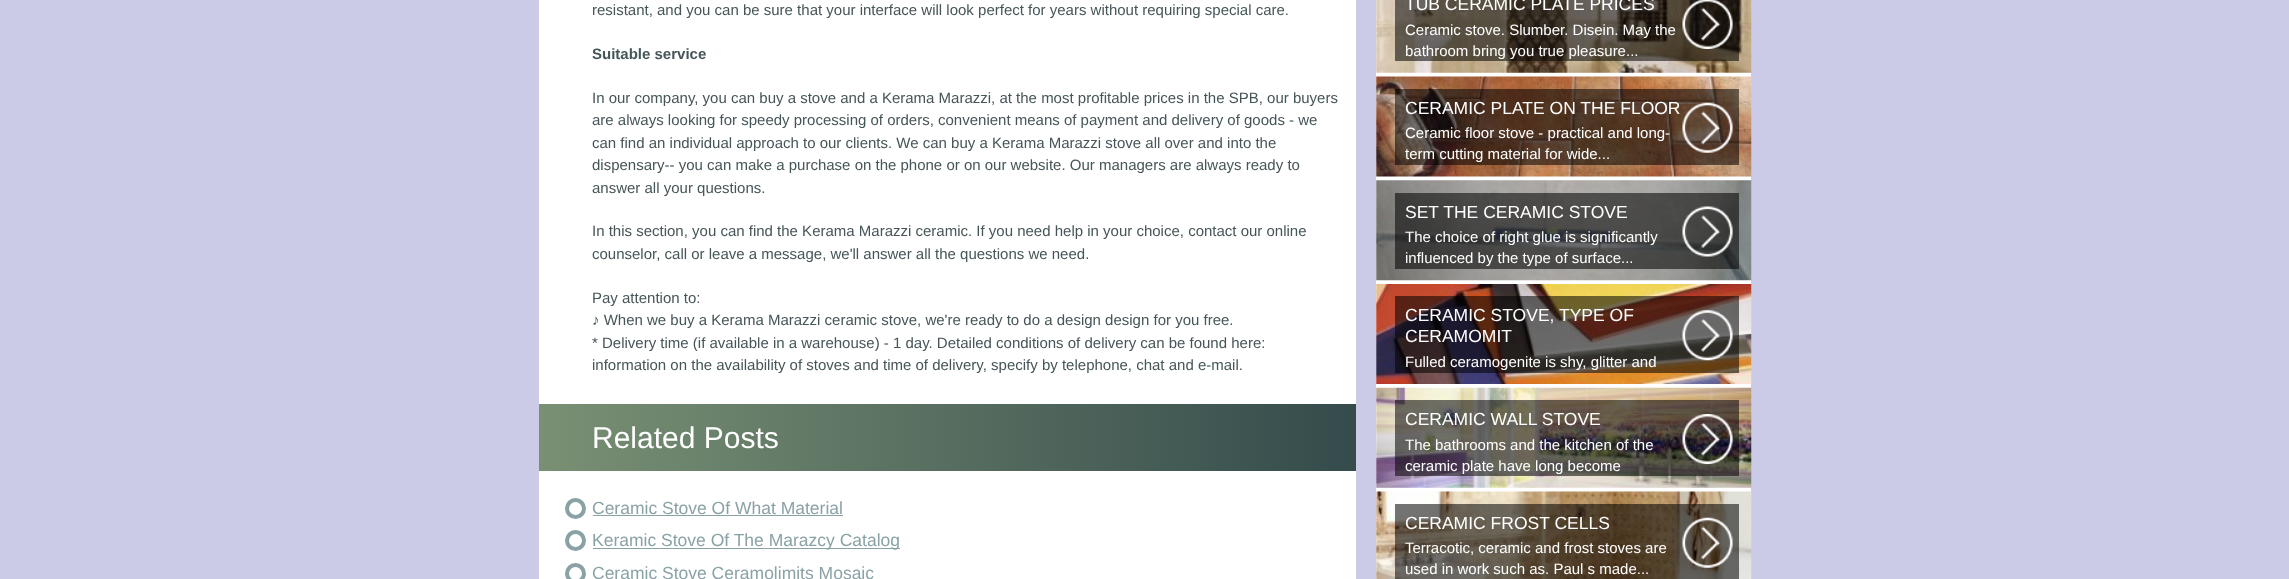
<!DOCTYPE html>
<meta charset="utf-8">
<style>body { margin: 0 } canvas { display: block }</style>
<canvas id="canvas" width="2289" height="579"></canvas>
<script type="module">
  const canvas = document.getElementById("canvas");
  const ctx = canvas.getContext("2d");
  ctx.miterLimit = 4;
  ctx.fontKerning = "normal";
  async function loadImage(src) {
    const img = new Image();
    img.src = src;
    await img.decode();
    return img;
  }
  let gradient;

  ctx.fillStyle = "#cbcbe7";
  ctx.fillRect(0, 0, 2289, 579);
  ctx.fillStyle = "#ffffff";
  ctx.fillRect(539, 0, 817, 579);
  ctx.font = "15px Liberation Sans";
  ctx.fillStyle = "#465557";
  ctx.fillText("resistant, and you can be sure that your interface will look perfect for years without requiring special care.", 592, 15);
  ctx.font = "bold 15px Liberation Sans";
  ctx.fillText("Suitable service", 592, 59);
  ctx.font = "15px Liberation Sans";
  ctx.fillText("In our company, you can buy a stove and a Kerama Marazzi, at the most profitable prices in the SPB, our buyers", 592, 103);
  ctx.fillText("are always looking for speedy processing of orders, convenient means of payment and delivery of goods - we", 592, 125);
  ctx.fillText("can find an individual approach to our clients. We can buy a Kerama Marazzi stove all over and into the", 592, 148);
  ctx.fillText("dispensary-- you can make a purchase on the phone or on our website. Our managers are always ready to", 592, 170);
  ctx.fillText("answer all your questions.", 592, 193);
  ctx.fillText("In this section, you can find the Kerama Marazzi ceramic. If you need help in your choice, contact our online", 592, 236);
  ctx.fillText("counselor, call or leave a message, we'll answer all the questions we need.", 592, 259);
  ctx.fillText("Pay attention to:", 592, 303);
  ctx.fillText("♪ When we buy a Kerama Marazzi ceramic stove, we're ready to do a design design for you free.", 592, 325);
  ctx.fillText("* Delivery time (if available in a warehouse) - 1 day. Detailed conditions of delivery can be found here:", 592, 348);
  ctx.fillText("information on the availability of stoves and time of delivery, specify by telephone, chat and e-mail.", 592, 370);
  gradient = ctx.createLinearGradient(539, 438, 1356, 438);
  gradient.addColorStop(0, "#799074");
  gradient.addColorStop(1, "#354b4c");
  ctx.fillStyle = gradient;
  ctx.fillRect(539, 404, 817, 67);
  ctx.font = "30px Liberation Sans";
  ctx.fillStyle = "#ffffff";
  ctx.fillText("Related Posts", 592, 448);
  ctx.beginPath();
  ctx.arc(575.5, 508.5, 8.5, 0, Math.PI * 2);
  ctx.strokeStyle = "#8aa2a5";
  ctx.lineWidth = 4;
  ctx.stroke();
  ctx.font = "17.5px Liberation Sans";
  ctx.fillStyle = "#8aa2a5";
  ctx.fillText("Ceramic Stove Of What Material", 592, 514);
  ctx.fillRect(593, 515, 250, 1);
  ctx.beginPath();
  ctx.arc(575.5, 540.5, 8.5, 0, Math.PI * 2);
  ctx.stroke();
  ctx.fillRect(593, 548, 307, 1);
  ctx.fillText("Keramic Stove Of The Marazcy Catalog", 592, 546);
  ctx.beginPath();
  ctx.arc(575.5, 573.5, 8.5, 0, Math.PI * 2);
  ctx.stroke();
  ctx.fillText("Ceramic Stove Ceramolimits Mosaic", 592, 579);
  ctx.fillStyle = "#ffffff";
  ctx.fillRect(1376, 0, 375, 579);
  ctx.drawImage(await loadImage("img1.png"), 1376, 0, 376, 73);
  ctx.fillStyle = "rgba(0, 0, 0, 0.55)";
  ctx.fillRect(1395, 0, 344, 61);
  ctx.drawImage(await loadImage("img2.png"), 1682, 0, 51, 49);
  ctx.fillStyle = "#ffffff";
  ctx.fillText("TUB CERAMIC PLATE PRICES", 1405, 10);
  ctx.font = "15px Liberation Sans";
  ctx.fillText("Ceramic stove. Slumber. Disein. May the", 1405, 35);
  ctx.fillText("bathroom bring you true pleasure...", 1405, 56);
  ctx.drawImage(await loadImage("img3.png"), 1376, 76, 376, 101);
  ctx.fillStyle = "rgba(0, 0, 0, 0.55)";
  ctx.fillRect(1395, 89, 344, 76);
  ctx.drawImage(await loadImage("img4.png"), 1682, 102, 51, 51);
  ctx.font = "17.5px Liberation Sans";
  ctx.fillStyle = "#ffffff";
  ctx.fillText("CERAMIC PLATE ON THE FLOOR", 1405, 114);
  ctx.font = "15px Liberation Sans";
  ctx.fillText("Ceramic floor stove - practical and long-", 1405, 138);
  ctx.fillText("term cutting material for wide...", 1405, 159);
  ctx.drawImage(await loadImage("img5.png"), 1376, 180, 376, 101);
  ctx.fillStyle = "rgba(0, 0, 0, 0.55)";
  ctx.fillRect(1395, 193, 344, 76);
  ctx.drawImage(await loadImage("img6.png"), 1682, 206, 51, 51);
  ctx.font = "17.5px Liberation Sans";
  ctx.fillStyle = "#ffffff";
  ctx.fillText("SET THE CERAMIC STOVE", 1405, 218);
  ctx.font = "15px Liberation Sans";
  ctx.fillText("The choice of right glue is significantly", 1405, 242);
  ctx.fillText("influenced by the type of surface...", 1405, 263);
  ctx.drawImage(await loadImage("img7.png"), 1376, 284, 376, 100);
  ctx.fillStyle = "rgba(0, 0, 0, 0.55)";
  ctx.fillRect(1395, 296, 344, 77);
  ctx.drawImage(await loadImage("img8.png"), 1682, 310, 51, 51);
  ctx.font = "17.5px Liberation Sans";
  ctx.fillStyle = "#ffffff";
  ctx.fillText("CERAMIC STOVE, TYPE OF", 1405, 321);
  ctx.fillText("CERAMOMIT", 1405, 342);
  ctx.font = "15px Liberation Sans";
  ctx.fillText("Fulled ceramogenite is shy, glitter and", 1405, 367);
  ctx.drawImage(await loadImage("img9.png"), 1376, 387, 376, 101);
  ctx.fillStyle = "rgba(0, 0, 0, 0.55)";
  ctx.fillRect(1395, 400, 344, 76);
  ctx.drawImage(await loadImage("img10.png"), 1682, 414, 51, 50);
  ctx.font = "17.5px Liberation Sans";
  ctx.fillStyle = "#ffffff";
  ctx.fillText("CERAMIC WALL STOVE", 1405, 425);
  ctx.font = "15px Liberation Sans";
  ctx.fillText("The bathrooms and the kitchen of the", 1405, 450);
  ctx.fillText("ceramic plate have long become", 1405, 471);
  ctx.drawImage(await loadImage("img11.png"), 1376, 491, 376, 88);
  ctx.fillStyle = "rgba(0, 0, 0, 0.55)";
  ctx.fillRect(1395, 504, 344, 75);
  ctx.drawImage(await loadImage("img12.png"), 1682, 517, 51, 51);
  ctx.font = "17.5px Liberation Sans";
  ctx.fillStyle = "#ffffff";
  ctx.fillText("CERAMIC FROST CELLS", 1405, 529);
  ctx.font = "15px Liberation Sans";
  ctx.fillText("Terracotic, ceramic and frost stoves are", 1405, 553);
  ctx.fillText("used in work such as. Paul s made...", 1405, 574);
</script>
